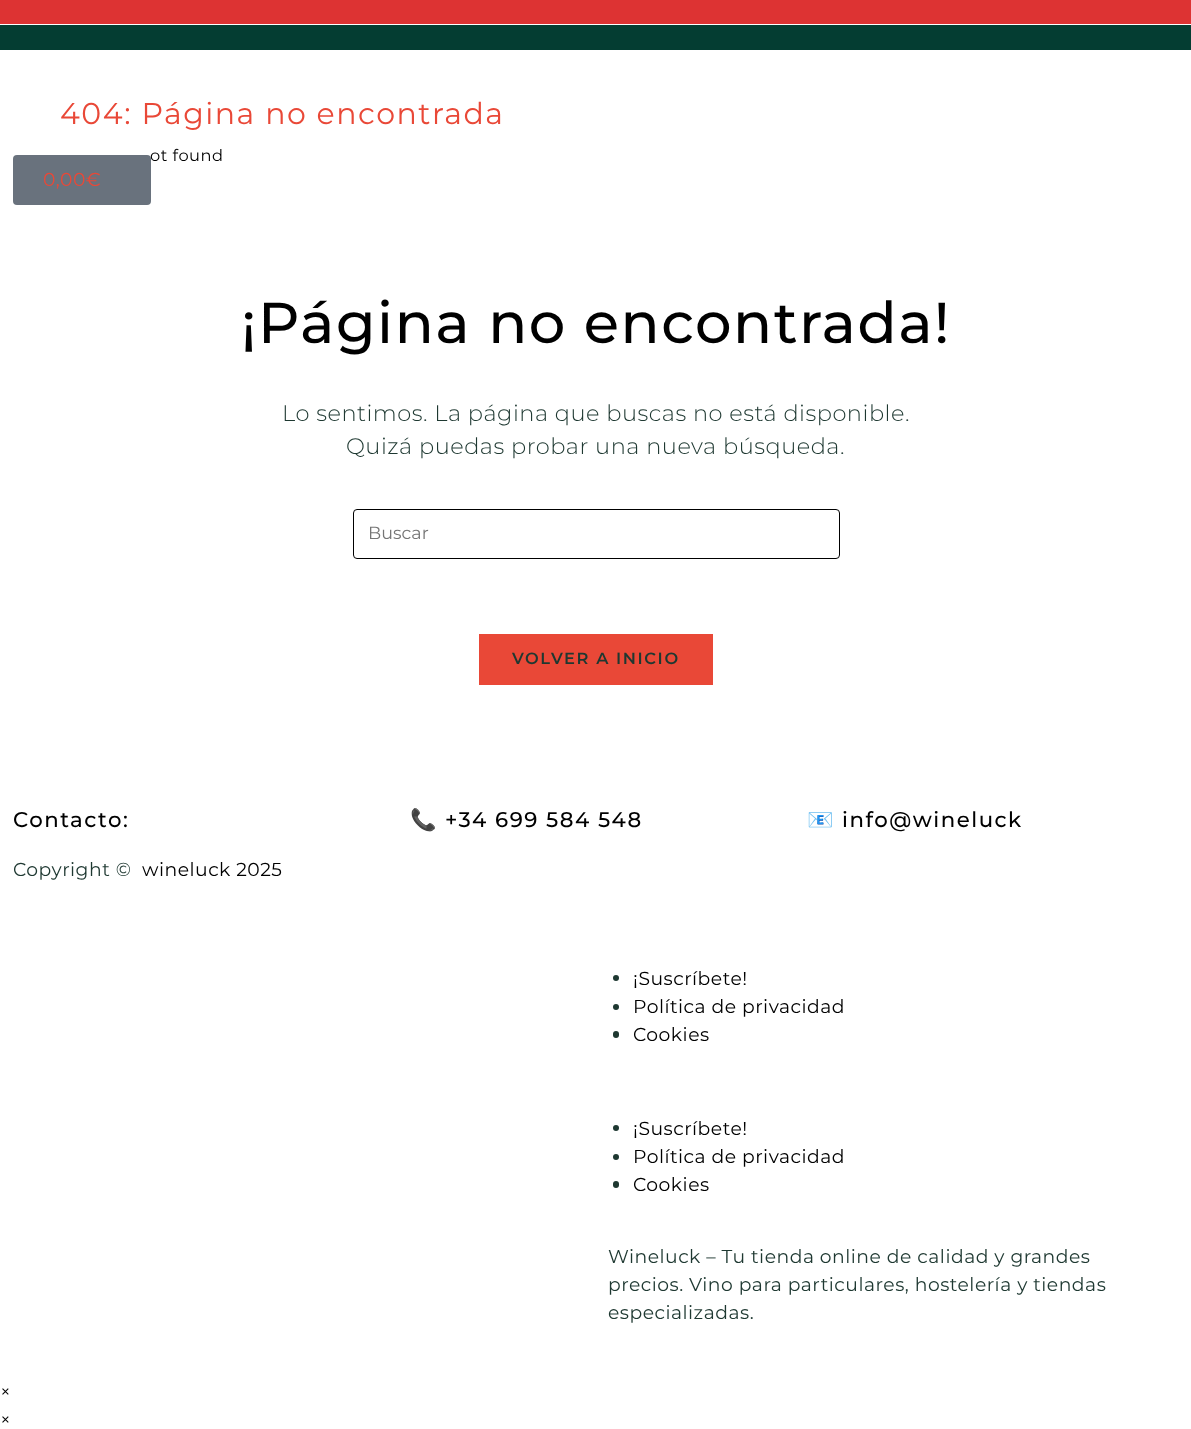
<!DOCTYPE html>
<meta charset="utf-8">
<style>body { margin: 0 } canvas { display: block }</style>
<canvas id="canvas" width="1191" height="1429"></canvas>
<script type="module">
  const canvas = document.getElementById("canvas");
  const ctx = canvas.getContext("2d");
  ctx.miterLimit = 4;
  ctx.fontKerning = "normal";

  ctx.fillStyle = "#ffffff";
  ctx.fillRect(0, 0, 1191, 1429);
  ctx.fillStyle = "#dd3333";
  ctx.fillRect(0, 0, 1191, 24);
  ctx.letterSpacing = "1.5px";
  ctx.font = "30px Montserrat";
  ctx.fillStyle = "#e94837";
  ctx.fillText("404: Página no encontrada", 60, 124);
  ctx.letterSpacing = "0.5px";
  ctx.font = "16.25px Montserrat";
  ctx.fillStyle = "#000000";
  ctx.fillText("ot found", 150, 161);
  ctx.letterSpacing = "1.5px";
  ctx.font = "500 57.5px Montserrat";
  ctx.fillText("¡Página no encontrada!", 241, 343);
  ctx.letterSpacing = "0.5px";
  ctx.font = "300 22.5px Montserrat";
  ctx.fillStyle = "#1e3831";
  ctx.fillText("Lo sentimos. La página que buscas no está disponible.", 282, 421);
  ctx.fillText("Quizá puedas probar una nueva búsqueda.", 346, 454);
  ctx.beginPath();
  ctx.roundRect(353.5, 509.5, 486, 49, 3.5);
  ctx.strokeStyle = "#000000";
  ctx.stroke();
  ctx.letterSpacing = "0px";
  ctx.font = "17.5px Montserrat";
  ctx.fillStyle = "#757575";
  ctx.fillText("Buscar", 368, 539);
  ctx.fillStyle = "#e94837";
  ctx.fillRect(479, 634, 234, 51);
  ctx.letterSpacing = "1.6px";
  ctx.font = "600 16.25px Montserrat";
  ctx.fillStyle = "#1e3831";
  ctx.fillText("VOLVER A INICIO", 512, 664);
  ctx.fillStyle = "#043d32";
  ctx.fillRect(0, 25, 1191, 25);
  ctx.fillStyle = "#69727d";
  ctx.beginPath();
  ctx.roundRect(13, 155, 138, 50, 4);
  ctx.fill();
  ctx.letterSpacing = "0.5px";
  ctx.font = "18.75px Montserrat";
  ctx.fillStyle = "#e94837";
  ctx.fillText("0,00€", 43, 186);
  ctx.letterSpacing = "1.5px";
  ctx.font = "500 21.25px Montserrat";
  ctx.fillStyle = "#000000";
  ctx.fillText("Contacto:", 13, 827);
  ctx.font = "21.25px Noto Color Emoji";
  ctx.fillText("📞", 410, 827);
  ctx.font = "500 21.25px Montserrat";
  ctx.fillText("+34 699 584 548", 445, 827);
  ctx.font = "21.25px Noto Color Emoji";
  ctx.fillText("📧", 807, 827);
  ctx.font = "500 21.25px Montserrat";
  ctx.fillText("info@wineluck", 842, 827);
  ctx.letterSpacing = "0.5px";
  ctx.font = "18.75px Montserrat";
  ctx.fillStyle = "#1e3831";
  ctx.fillText("Copyright ©", 13, 876);
  ctx.fillStyle = "#000000";
  ctx.fillText("wineluck 2025", 142, 876);
  ctx.fillStyle = "#1e3831";
  ctx.beginPath();
  ctx.arc(616, 978, 3, 0, Math.PI * 2);
  ctx.fill();
  ctx.fillStyle = "#000000";
  ctx.fillText("¡Suscríbete!", 633, 985);
  ctx.fillStyle = "#1e3831";
  ctx.beginPath();
  ctx.arc(616, 1007, 3, 0, Math.PI * 2);
  ctx.fill();
  ctx.fillStyle = "#000000";
  ctx.fillText("Política de privacidad", 633, 1013);
  ctx.fillStyle = "#1e3831";
  ctx.beginPath();
  ctx.roundRect(613, 1031, 6, 7, 3);
  ctx.fill();
  ctx.fillStyle = "#000000";
  ctx.fillText("Cookies", 633, 1041);
  ctx.fillStyle = "#1e3831";
  ctx.beginPath();
  ctx.arc(616, 1128, 3, 0, Math.PI * 2);
  ctx.fill();
  ctx.fillStyle = "#000000";
  ctx.fillText("¡Suscríbete!", 633, 1135);
  ctx.fillStyle = "#1e3831";
  ctx.beginPath();
  ctx.arc(616, 1157, 3, 0, Math.PI * 2);
  ctx.fill();
  ctx.fillStyle = "#000000";
  ctx.fillText("Política de privacidad", 633, 1163);
  ctx.fillStyle = "#1e3831";
  ctx.beginPath();
  ctx.roundRect(613, 1181, 6, 7, 3);
  ctx.fill();
  ctx.fillStyle = "#000000";
  ctx.fillText("Cookies", 633, 1191);
  ctx.fillStyle = "#1e3831";
  ctx.fillText("Wineluck – Tu tienda online de calidad y grandes", 608, 1263);
  ctx.fillText("precios. Vino para particulares, hostelería y tiendas", 608, 1291);
  ctx.fillText("especializadas.", 608, 1319);
  ctx.fillStyle = "#000000";
  ctx.fillText("×", 0, 1398);
  ctx.fillText("×", 0, 1426);
</script>
